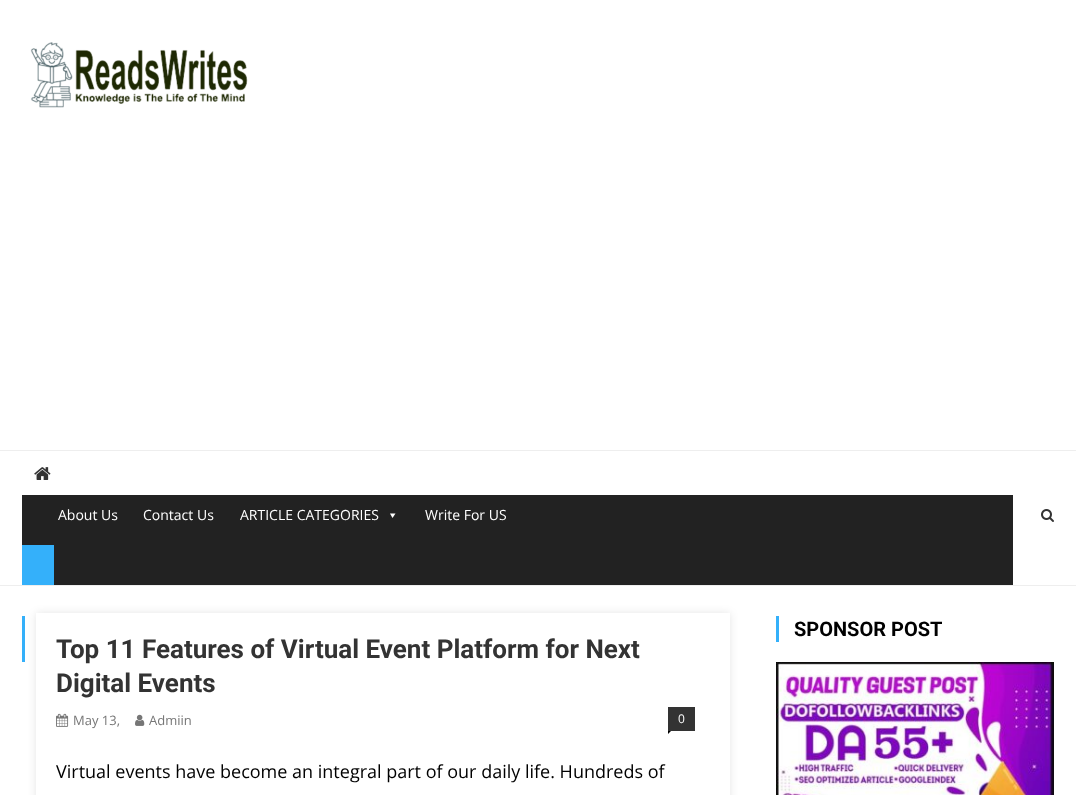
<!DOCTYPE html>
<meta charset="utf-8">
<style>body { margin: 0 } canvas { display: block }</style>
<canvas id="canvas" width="1076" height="795"></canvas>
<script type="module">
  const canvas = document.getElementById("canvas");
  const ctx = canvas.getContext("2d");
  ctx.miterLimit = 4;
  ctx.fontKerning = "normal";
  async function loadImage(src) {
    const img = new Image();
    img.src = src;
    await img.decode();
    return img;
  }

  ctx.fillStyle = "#ffffff";
  ctx.fillRect(0, 0, 1076, 795);
  ctx.drawImage(await loadImage("img1.png"), 30, 42, 218, 66);
  ctx.fillStyle = "#eeeeee";
  ctx.fillRect(0, 450, 1076, 1);
  ctx.fillRect(0, 585, 1076, 1);
  ctx.drawImage(await loadImage("img2.png"), 34, 467, 17, 13);
  ctx.fillStyle = "#222222";
  ctx.fillRect(22, 495, 991, 90);
  ctx.font = "14px Open Sans";
  ctx.fillStyle = "#ffffff";
  ctx.fillText("About Us", 58, 520);
  ctx.fillText("Contact Us", 143, 520);
  ctx.fillText("ARTICLE CATEGORIES", 240, 520);
  ctx.beginPath();
  ctx.moveTo(395.5, 513.5);
  ctx.lineTo(392.5, 518);
  ctx.lineTo(390, 513.5);
  ctx.closePath();
  ctx.fill();
  ctx.fillText("Write For US", 425, 520);
  ctx.fillStyle = "#34b0fa";
  ctx.fillRect(22, 545, 32, 40);
  ctx.drawImage(await loadImage("img3.png"), 1041, 509, 13, 13);
  ctx.fillRect(776, 616, 3, 26);
  ctx.font = "bold 20px Roboto";
  ctx.fillStyle = "#000000";
  ctx.fillText("SPONSOR POST", 794, 636);
  ctx.drawImage(await loadImage("img4.png"), 776, 662, 278, 133);
  ctx.fillStyle = "#34b0fa";
  ctx.fillRect(22, 616, 3, 46);
  ctx.fillStyle = "rgba(0, 0, 0, 0.1)";
  ctx.filter = "blur(4px)";
  ctx.beginPath();
  ctx.rect(36, 613, 694, 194);
  ctx.fill();
  ctx.filter = "none";
  ctx.fillStyle = "#ffffff";
  ctx.fillRect(36, 613, 694, 182);
  ctx.font = "bold 26px Roboto";
  ctx.fillStyle = "#333333";
  ctx.fillText("Top 11 Features of Virtual Event Platform for Next", 56, 658);
  ctx.fillText("Digital Events", 56, 692);
  ctx.drawImage(await loadImage("img5.png"), 56, 713, 13, 14);
  ctx.font = "13px Open Sans";
  ctx.fillStyle = "#767676";
  ctx.fillText("May 13,", 73, 725);
  ctx.drawImage(await loadImage("img6.png"), 135, 714, 10, 12);
  ctx.fillText("Admiin", 149, 725);
  ctx.fillStyle = "#333333";
  ctx.fillRect(668, 707, 27, 24);
  ctx.font = "12px Open Sans";
  ctx.fillStyle = "#ffffff";
  ctx.fillText("0", 678, 723);
  ctx.fillStyle = "#000000";
  ctx.beginPath();
  ctx.moveTo(668, 731);
  ctx.lineTo(671, 731);
  ctx.lineTo(668, 734);
  ctx.closePath();
  ctx.fill();
  ctx.font = "18px Open Sans";
  ctx.fillText("Virtual events have become an integral part of our daily life. Hundreds of", 56, 778);
</script>
